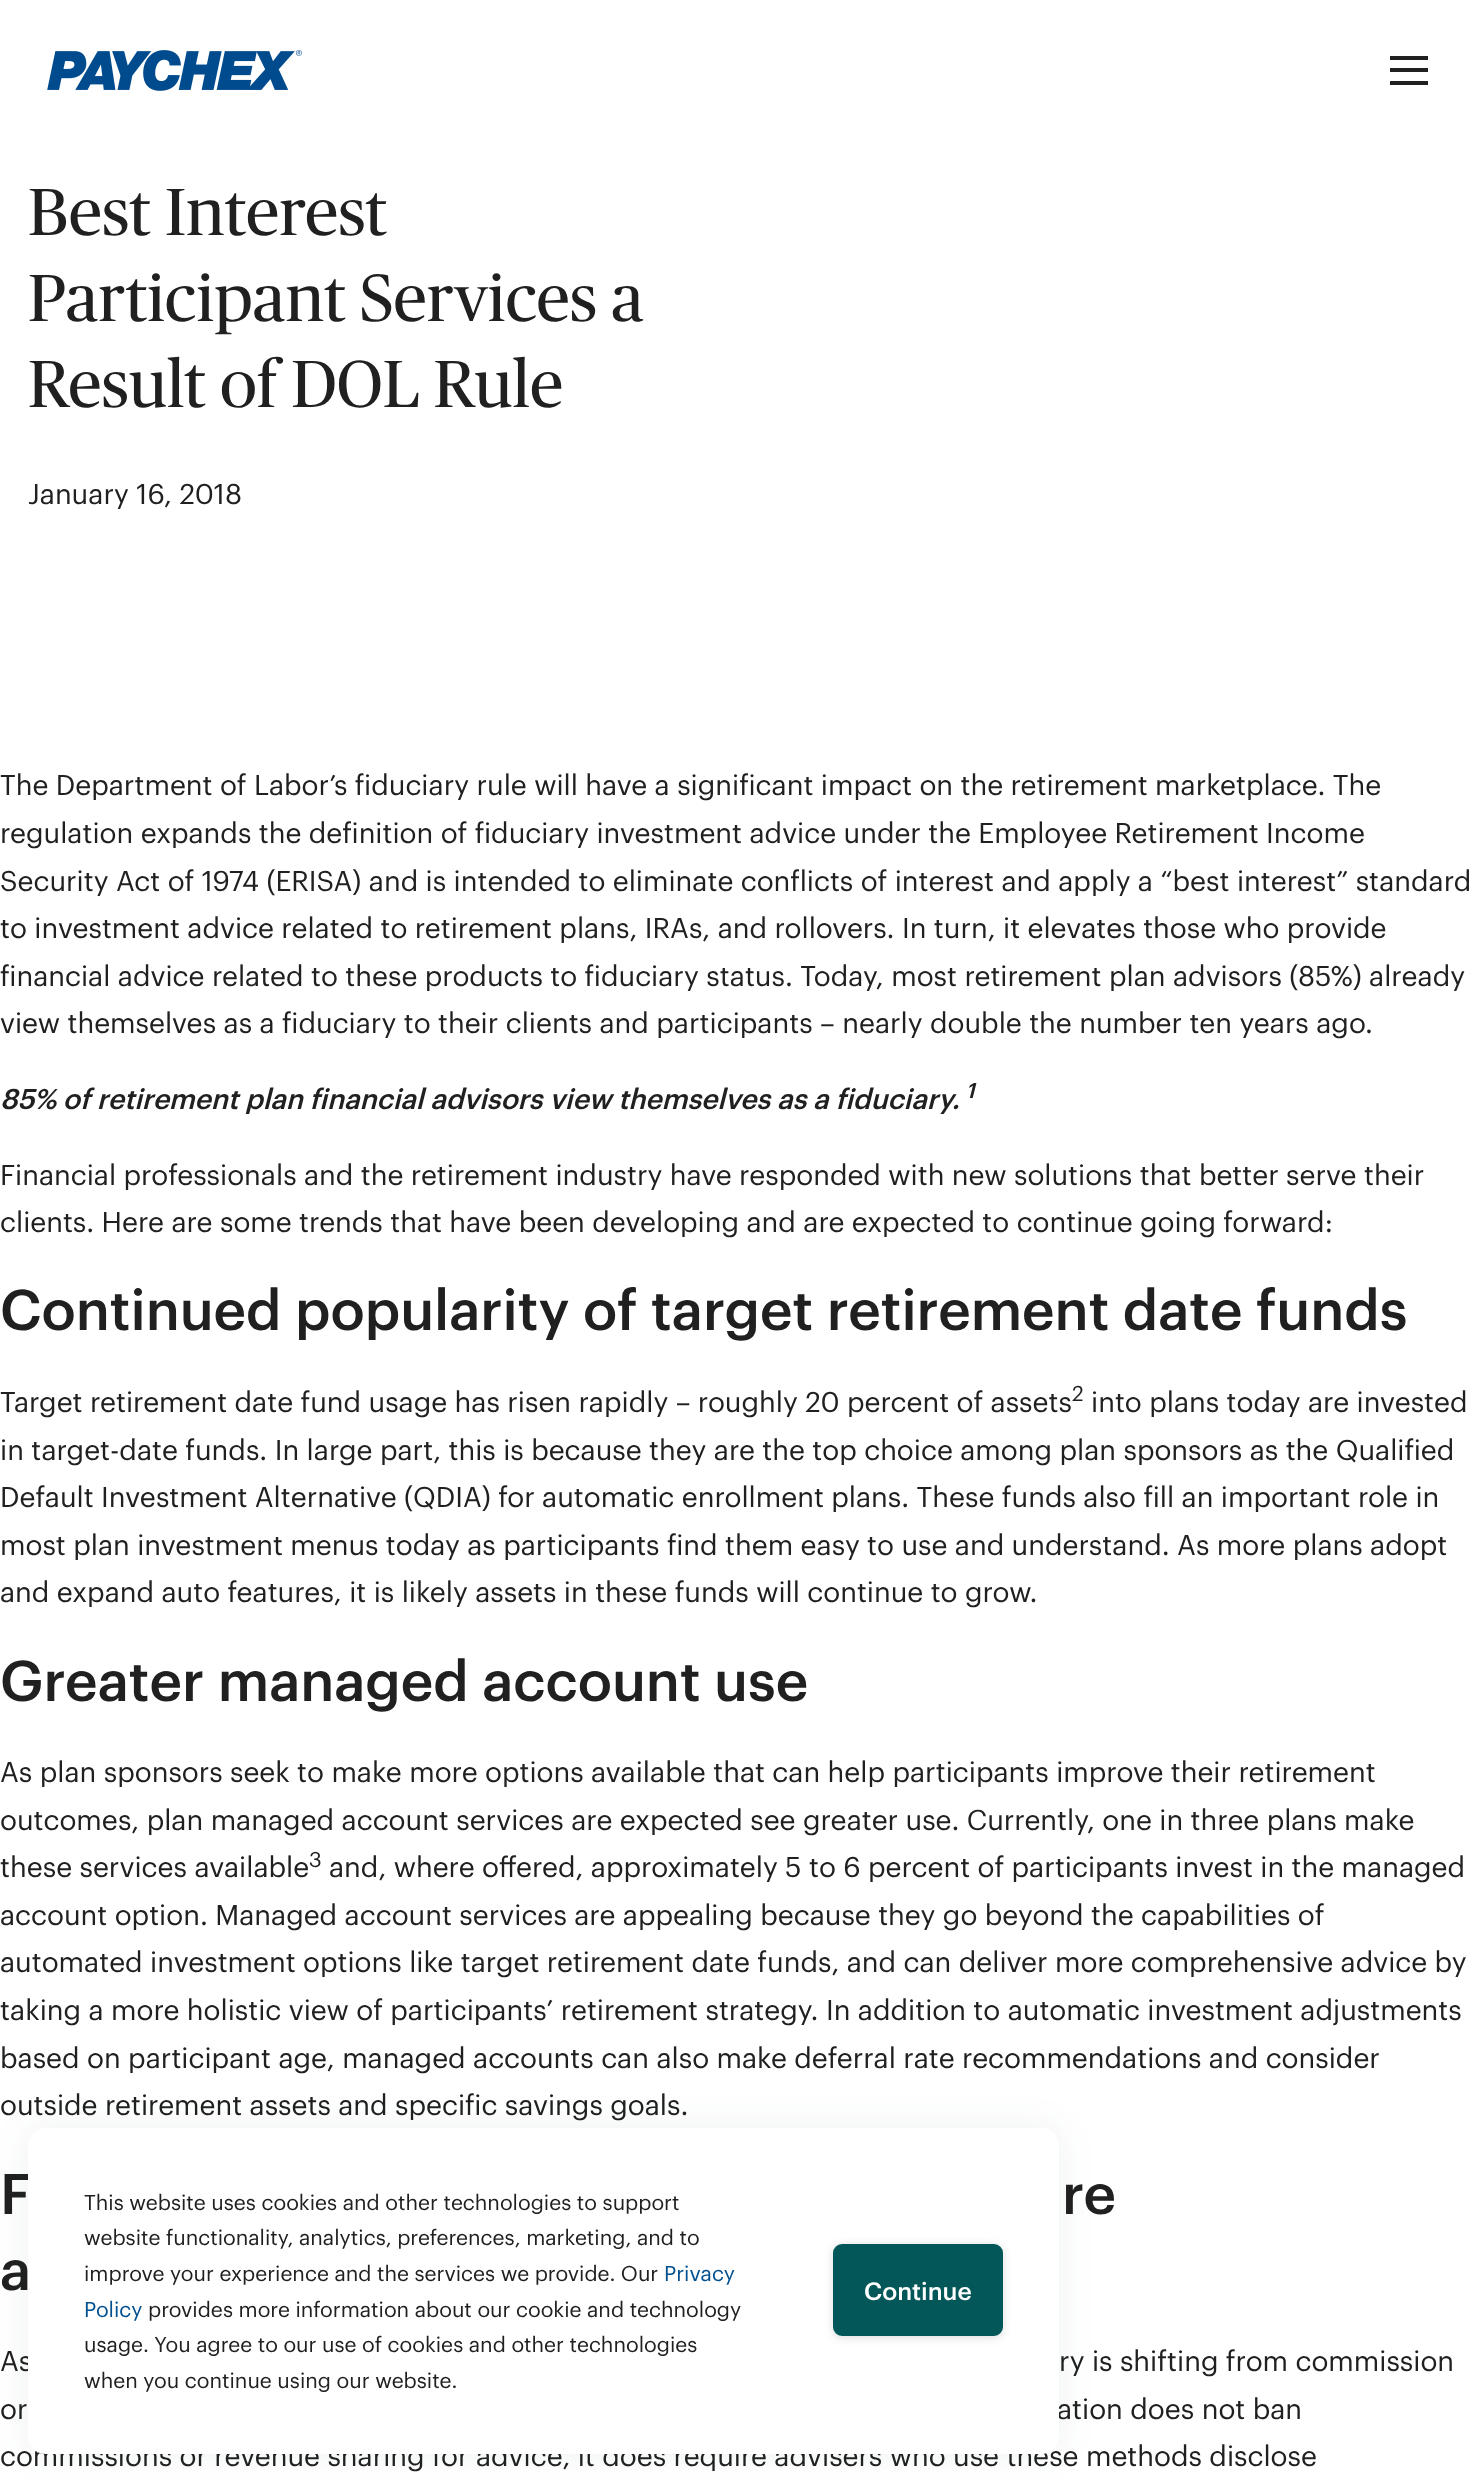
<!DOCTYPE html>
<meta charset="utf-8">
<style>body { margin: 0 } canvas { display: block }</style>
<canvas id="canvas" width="1473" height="2481"></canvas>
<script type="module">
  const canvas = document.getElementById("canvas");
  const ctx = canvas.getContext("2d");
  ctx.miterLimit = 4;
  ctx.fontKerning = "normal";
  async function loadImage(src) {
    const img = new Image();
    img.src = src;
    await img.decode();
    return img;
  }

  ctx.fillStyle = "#ffffff";
  ctx.fillRect(0, 0, 1473, 2481);
  ctx.drawImage(await loadImage("img1.png"), 47, 49, 255, 42);
  ctx.fillStyle = "#202020";
  ctx.fillRect(1390, 56, 38, 4);
  ctx.fillRect(1390, 68, 38, 4);
  ctx.fillRect(1390, 81, 38, 4);
  ctx.font = "66.5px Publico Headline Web";
  ctx.fillText("Best Interest", 28, 235);
  ctx.fillText("Participant Services a", 28, 321);
  ctx.fillText("Result of DOL Rule", 28, 407);
  ctx.font = "28px Graphik";
  ctx.fillText("January 16, 2018", 28, 504);
  ctx.fillText("The Department of Labor’s fiduciary rule will have a significant impact on the retirement marketplace. The", 0, 795);
  ctx.fillText("regulation expands the definition of fiduciary investment advice under the Employee Retirement Income", 0, 843);
  ctx.fillText("Security Act of 1974 (ERISA) and is intended to eliminate conflicts of interest and apply a “best interest” standard", 0, 891);
  ctx.fillText("to investment advice related to retirement plans, IRAs, and rollovers. In turn, it elevates those who provide", 0, 938);
  ctx.fillText("financial advice related to these products to fiduciary status. Today, most retirement plan advisors (85%) already", 0, 986);
  ctx.fillText("view themselves as a fiduciary to their clients and participants – nearly double the number ten years ago.", 0, 1033);
  ctx.font = "italic 500 28px Graphik";
  ctx.fillText("85% of retirement plan financial advisors view themselves as a fiduciary.", 0, 1109);
  ctx.font = "italic 500 21px Graphik";
  ctx.fillText("1", 966, 1098);
  ctx.font = "28px Graphik";
  ctx.fillText("Financial professionals and the retirement industry have responded with new solutions that better serve their", 0, 1185);
  ctx.fillText("clients. Here are some trends that have been developing and are expected to continue going forward:", 0, 1232);
  ctx.font = "500 56px Graphik";
  ctx.fillText("Continued popularity of target retirement date funds", 0, 1330);
  ctx.font = "28px Graphik";
  ctx.fillText("Target retirement date fund usage has risen rapidly – roughly 20 percent of assets", 0, 1412);
  ctx.font = "21px Graphik";
  ctx.fillText("2", 1072, 1401);
  ctx.font = "28px Graphik";
  ctx.fillText("into plans today are invested", 1091, 1412);
  ctx.fillText("in target-date funds. In large part, this is because they are the top choice among plan sponsors as the Qualified", 0, 1460);
  ctx.fillText("Default Investment Alternative (QDIA) for automatic enrollment plans. These funds also fill an important role in", 0, 1507);
  ctx.fillText("most plan investment menus today as participants find them easy to use and understand. As more plans adopt", 0, 1555);
  ctx.fillText("and expand auto features, it is likely assets in these funds will continue to grow.", 0, 1602);
  ctx.font = "500 56px Graphik";
  ctx.fillText("Greater managed account use", 0, 1701);
  ctx.font = "28px Graphik";
  ctx.fillText("As plan sponsors seek to make more options available that can help participants improve their retirement", 0, 1782);
  ctx.fillText("outcomes, plan managed account services are expected see greater use. Currently, one in three plans make", 0, 1830);
  ctx.fillText("these services available", 0, 1877);
  ctx.font = "21px Graphik";
  ctx.fillText("3", 309, 1867);
  ctx.font = "28px Graphik";
  ctx.fillText("and, where offered, approximately 5 to 6 percent of participants invest in the managed", 329, 1877);
  ctx.fillText("account option. Managed account services are appealing because they go beyond the capabilities of", 0, 1925);
  ctx.fillText("automated investment options like target retirement date funds, and can deliver more comprehensive advice by", 0, 1972);
  ctx.fillText("taking a more holistic view of participants’ retirement strategy. In addition to automatic investment adjustments", 0, 2020);
  ctx.fillText("based on participant age, managed accounts can also make deferral rate recommendations and consider", 0, 2068);
  ctx.fillText("outside retirement assets and specific savings goals.", 0, 2115);
  ctx.font = "500 56px Graphik";
  ctx.fillText("F", 0, 2214);
  ctx.fillText("re", 1062, 2214);
  ctx.fillText("a", 0, 2290);
  ctx.font = "28px Graphik";
  ctx.fillText("As", 0, 2371);
  ctx.fillText("ry is shifting from commission", 1059, 2371);
  ctx.fillText("or", 0, 2419);
  ctx.fillText("ation does not ban", 1057, 2419);
  ctx.fillText("commissions or revenue sharing for advice, it does require advisers who use these methods disclose", 0, 2466);
  ctx.fillStyle = "rgba(39, 59, 74, 0.08)";
  ctx.filter = "blur(17.5px)";
  ctx.beginPath();
  ctx.roundRect(28, 2128, 1031, 326, 18);
  ctx.fill();
  ctx.filter = "none";
  ctx.fillStyle = "#ffffff";
  ctx.beginPath();
  ctx.roundRect(28, 2128, 1031, 326, 18);
  ctx.fill();
  ctx.font = "21px Graphik";
  ctx.fillStyle = "#202020";
  ctx.fillText("This website uses cookies and other technologies to support", 84, 2210);
  ctx.fillText("website functionality, analytics, preferences, marketing, and to", 84, 2245);
  ctx.fillText("improve your experience and the services we provide. Our", 84, 2281);
  ctx.fillStyle = "#004f8f";
  ctx.fillText("Privacy", 664, 2281);
  ctx.fillText("Policy", 84, 2317);
  ctx.fillStyle = "#202020";
  ctx.fillText("provides more information about our cookie and technology", 148, 2317);
  ctx.fillText("usage. You agree to our use of cookies and other technologies", 84, 2352);
  ctx.fillText("when you continue using our website.", 84, 2388);
  ctx.fillStyle = "rgba(32, 32, 32, 0.15)";
  ctx.filter = "blur(4.5px)";
  ctx.beginPath();
  ctx.roundRect(833, 2245, 170, 93, 9);
  ctx.fill();
  ctx.filter = "none";
  ctx.fillStyle = "#035758";
  ctx.beginPath();
  ctx.roundRect(835, 2246, 166, 88, 7);
  ctx.fill();
  ctx.strokeStyle = "#035758";
  ctx.lineWidth = 4;
  ctx.stroke();
  ctx.font = "500 24.5px Graphik";
  ctx.fillStyle = "#ffffff";
  ctx.fillText("Continue", 864, 2300);
</script>
